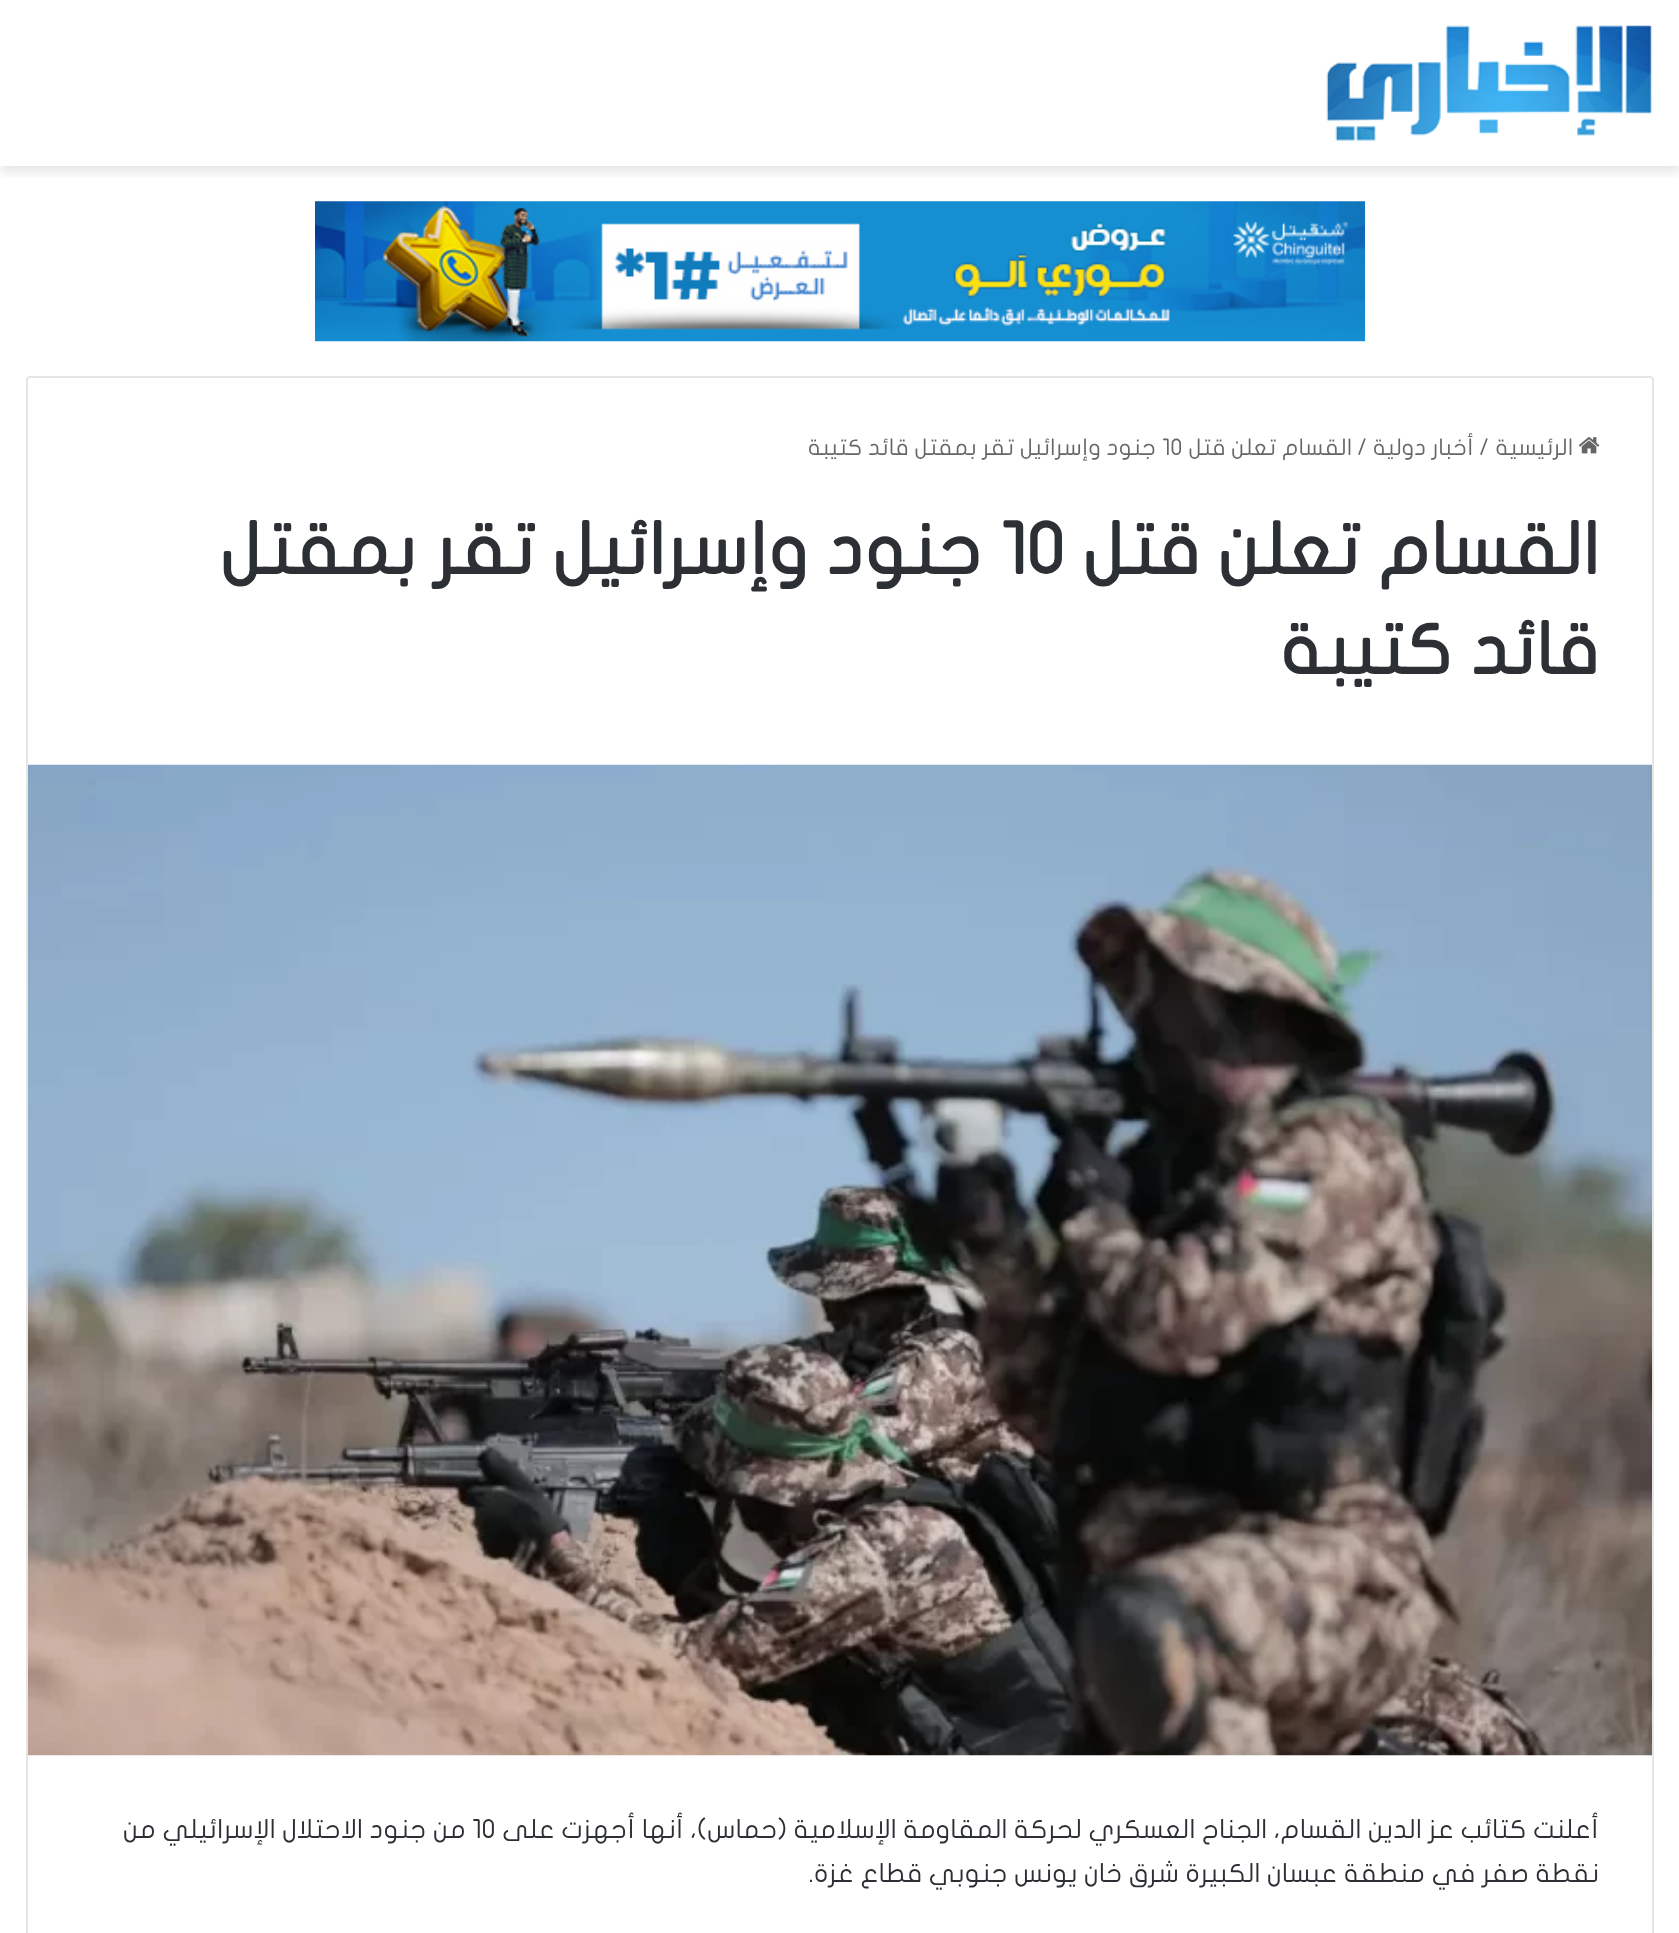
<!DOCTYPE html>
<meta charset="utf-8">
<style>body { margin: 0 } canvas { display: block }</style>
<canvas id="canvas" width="1679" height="1933"></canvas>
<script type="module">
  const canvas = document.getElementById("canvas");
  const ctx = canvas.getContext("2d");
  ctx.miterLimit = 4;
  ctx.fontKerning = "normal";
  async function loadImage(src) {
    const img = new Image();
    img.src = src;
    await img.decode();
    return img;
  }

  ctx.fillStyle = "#ffffff";
  ctx.fillRect(0, 0, 1679, 1933);
  ctx.save();
  ctx.beginPath();
  ctx.rect(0, 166, 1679, 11);
  ctx.clip();
  ctx.fillStyle = "rgba(0, 0, 0, 0.1)";
  ctx.filter = "blur(6px)";
  ctx.beginPath();
  ctx.rect(0, 5, 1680, 167);
  ctx.fill();
  ctx.filter = "none";
  ctx.restore();
  ctx.drawImage(await loadImage("img1.png"), 1326, 25, 326, 116);
  ctx.drawImage(await loadImage("img2.png"), 315, 201, 1050, 141);
  ctx.beginPath();
  ctx.roundRect(27, 377, 1626, 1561, 3);
  ctx.strokeStyle = "#e6e6e6";
  ctx.lineWidth = 2;
  ctx.stroke();
  ctx.drawImage(await loadImage("img3.png"), 1578, 437, 22, 17);
  ctx.direction = "rtl";
  ctx.font = "22.75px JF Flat";
  ctx.fillStyle = "#666666";
  ctx.fillText("الرئيسية", 1573, 455);
  ctx.direction = "ltr";
  ctx.fillText("/", 1479, 455);
  ctx.direction = "rtl";
  ctx.fillText("أخبار دولية", 1474, 455);
  ctx.direction = "ltr";
  ctx.fillText("/", 1357, 455);
  ctx.direction = "rtl";
  ctx.fillText("القسام تعلن قتل", 1352, 455);
  ctx.direction = "ltr";
  ctx.fillText("10", 1162, 455);
  ctx.direction = "rtl";
  ctx.fillText("جنود وإسرائيل تقر بمقتل قائد كتيبة", 1156, 455);
  ctx.font = "bold 71.75px JF Flat";
  ctx.fillStyle = "#2c2f34";
  ctx.fillText("القسام تعلن قتل", 1599, 574);
  ctx.direction = "ltr";
  ctx.fillText("10", 1000, 574);
  ctx.direction = "rtl";
  ctx.fillText("جنود وإسرائيل تقر بمقتل", 982, 574);
  ctx.fillText("قائد كتيبة", 1599, 674);
  ctx.drawImage(await loadImage("img4.png"), 28, 764, 1624, 992);
  ctx.font = "26.25px JF Flat";
  ctx.fillText("أعلنت كتائب عز الدين القسام، الجناح العسكري لحركة المقاومة الإسلامية (حماس)، أنها أجهزت على", 1599, 1838);
  ctx.direction = "ltr";
  ctx.fillText("10", 472, 1838);
  ctx.direction = "rtl";
  ctx.fillText("من جنود الاحتلال الإسرائيلي من", 466, 1838);
  ctx.fillText("نقطة صفر في منطقة عبسان الكبيرة شرق خان يونس جنوبي قطاع غزة.", 1599, 1882);
</script>
